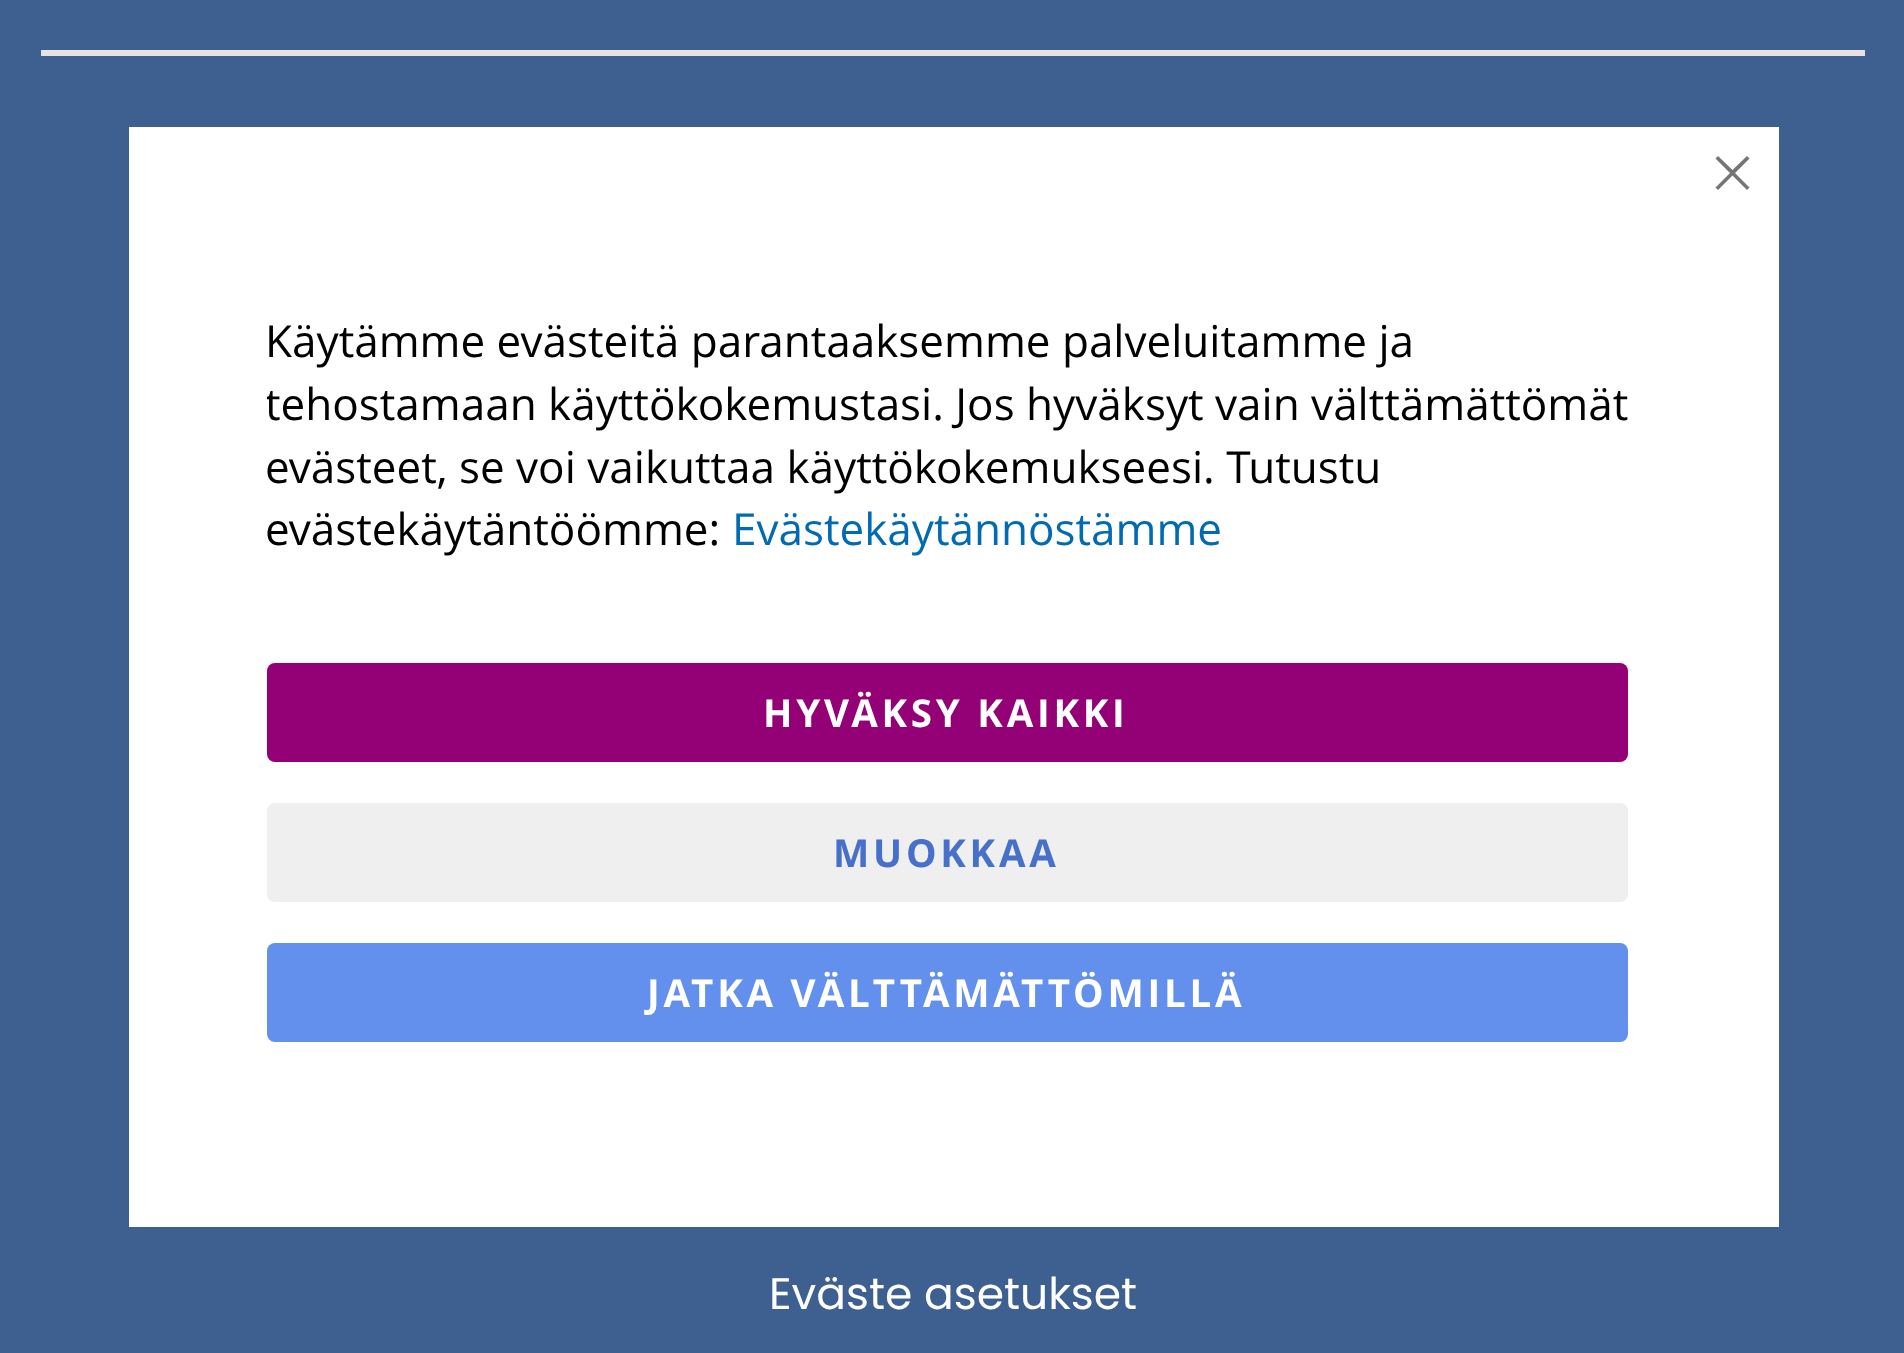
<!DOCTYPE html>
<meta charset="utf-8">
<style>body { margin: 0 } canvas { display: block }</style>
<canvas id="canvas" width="1904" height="1353"></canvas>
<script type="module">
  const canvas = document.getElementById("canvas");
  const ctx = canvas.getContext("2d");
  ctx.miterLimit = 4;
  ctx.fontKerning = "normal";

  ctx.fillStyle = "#3d6090";
  ctx.fillRect(0, 0, 1904, 1353);
  ctx.fillStyle = "#ffffff";
  ctx.fillRect(129, 127, 1650, 1100);
  ctx.fillStyle = "#757575";
  ctx.beginPath();
  ctx.moveTo(1749.5, 158.5);
  ctx.lineTo(1747, 156);
  ctx.lineTo(1732.5, 170);
  ctx.lineTo(1718, 156);
  ctx.lineTo(1715.5, 158.5);
  ctx.lineTo(1730, 173);
  ctx.lineTo(1715.5, 187.5);
  ctx.lineTo(1718, 190);
  ctx.lineTo(1732.5, 175.5);
  ctx.lineTo(1747, 190);
  ctx.lineTo(1749.5, 187.5);
  ctx.lineTo(1735, 173);
  ctx.closePath();
  ctx.fill();
  ctx.font = "44px Open Sans";
  ctx.fillStyle = "#000000";
  ctx.fillText("Käytämme evästeitä parantaaksemme palveluitamme ja", 265, 357);
  ctx.save();
  ctx.beginPath();
  ctx.rect(267, 311, 1375, 250);
  ctx.clip();
  ctx.fillText("tehostamaan käyttökokemustasi. Jos hyväksyt vain välttämättömät", 265, 420);
  ctx.restore();
  ctx.fillText("evästeet, se voi vaikuttaa käyttökokemukseesi. Tutustu", 265, 483);
  ctx.fillText("evästekäytäntöömme:", 265, 545);
  ctx.fillStyle = "#006bb4";
  ctx.fillText("Evästekäytännöstämme", 732, 545);
  ctx.fillStyle = "#940075";
  ctx.beginPath();
  ctx.roundRect(267, 663, 1361, 99, 8);
  ctx.fill();
  ctx.letterSpacing = "3.75px";
  ctx.font = "bold 38.5px Open Sans";
  ctx.fillStyle = "#ffffff";
  ctx.fillText("HYVÄKSY KAIKKI", 763, 727);
  ctx.fillStyle = "#efefef";
  ctx.beginPath();
  ctx.roundRect(267, 803, 1361, 99, 8);
  ctx.fill();
  ctx.fillStyle = "#4670c9";
  ctx.fillText("MUOKKAA", 833, 867);
  ctx.fillStyle = "#6390ed";
  ctx.beginPath();
  ctx.roundRect(267, 943, 1361, 99, 8);
  ctx.fill();
  ctx.fillStyle = "#ffffff";
  ctx.fillText("JATKA VÄLTTÄMÄTTÖMILLÄ", 647, 1007);
  ctx.fillStyle = "#e7e3e3";
  ctx.fillRect(41, 50, 1824, 6);
  ctx.letterSpacing = "0px";
  ctx.font = "44px Poppins";
  ctx.fillStyle = "#ffffff";
  ctx.fillText("Eväste asetukset", 769, 1309);
</script>
